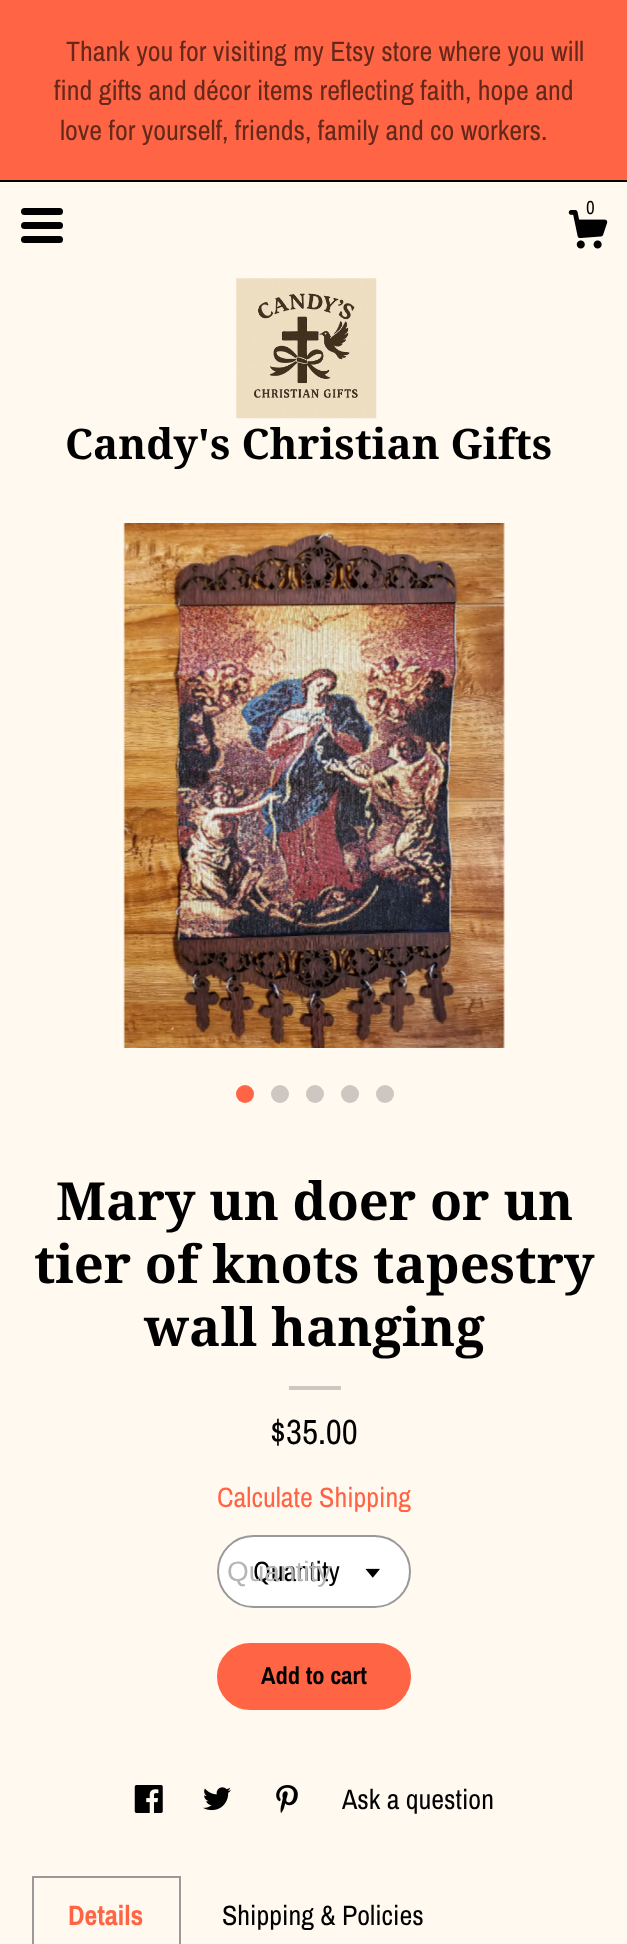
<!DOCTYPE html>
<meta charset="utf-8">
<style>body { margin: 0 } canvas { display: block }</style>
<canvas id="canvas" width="627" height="1944"></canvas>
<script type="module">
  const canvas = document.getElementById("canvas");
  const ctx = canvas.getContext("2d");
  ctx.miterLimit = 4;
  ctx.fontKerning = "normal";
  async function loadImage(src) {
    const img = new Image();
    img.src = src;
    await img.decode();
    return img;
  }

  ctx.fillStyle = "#fff9f0";
  ctx.fillRect(0, 0, 627, 1944);
  ctx.fillStyle = "#ff6544";
  ctx.fillRect(0, 0, 627, 180);
  ctx.fillStyle = "#000000";
  ctx.fillRect(0, 180, 627, 2);
  ctx.font = "28px Archivo Narrow";
  ctx.fillStyle = "#66281b";
  ctx.fillText("Thank you for visiting my Etsy store where you will", 66, 61);
  ctx.fillText("find gifts and décor items reflecting faith, hope and", 54, 100);
  ctx.fillText("love for yourself, friends, family and co workers.", 60, 140);
  ctx.fillStyle = "#000000";
  ctx.beginPath();
  ctx.roundRect(21, 208, 42, 7, 3.5);
  ctx.fill();
  ctx.beginPath();
  ctx.roundRect(21, 222, 42, 7, 3.5);
  ctx.fill();
  ctx.beginPath();
  ctx.roundRect(21, 236, 42, 7, 3.5);
  ctx.fill();
  ctx.drawImage(await loadImage("img1.png"), 568, 210, 40, 39);
  ctx.font = "19px Archivo Narrow";
  ctx.fillText("0", 586, 214);
  ctx.drawImage(await loadImage("img2.png"), 236, 278, 141, 141);
  ctx.font = "bold 42px Droid Serif";
  ctx.fillText("Candy's Christian Gifts", 65, 459);
  ctx.drawImage(await loadImage("img3.png"), 123, 523, 382, 525);
  ctx.fillStyle = "#ff6544";
  ctx.beginPath();
  ctx.arc(245, 1094, 9, 0, Math.PI * 2);
  ctx.fill();
  ctx.fillStyle = "#ccc7c0";
  ctx.beginPath();
  ctx.arc(280, 1094, 9, 0, Math.PI * 2);
  ctx.fill();
  ctx.beginPath();
  ctx.arc(315, 1094, 9, 0, Math.PI * 2);
  ctx.fill();
  ctx.beginPath();
  ctx.arc(350, 1094, 9, 0, Math.PI * 2);
  ctx.fill();
  ctx.beginPath();
  ctx.arc(385, 1094, 9, 0, Math.PI * 2);
  ctx.fill();
  ctx.font = "bold 52.5px Droid Serif";
  ctx.fillStyle = "#000000";
  ctx.fillText("Mary un doer or un", 56, 1220);
  ctx.fillText("tier of knots tapestry", 34, 1283);
  ctx.fillText("wall hanging", 144, 1346);
  ctx.fillStyle = "#ccc7c0";
  ctx.fillRect(289, 1386, 52, 4);
  ctx.font = "35px Archivo Narrow";
  ctx.fillStyle = "#000000";
  ctx.fillText("$35.00", 270, 1444);
  ctx.font = "28px Archivo Narrow";
  ctx.fillStyle = "#ff6544";
  ctx.fillText("Calculate Shipping", 217, 1507);
  ctx.fillStyle = "#ffffff";
  ctx.beginPath();
  ctx.roundRect(218, 1536, 192, 71, 35.5);
  ctx.fill();
  ctx.strokeStyle = "#999999";
  ctx.lineWidth = 2;
  ctx.stroke();
  ctx.fillStyle = "#000000";
  ctx.fillText("Quantity", 253, 1581);
  ctx.font = "28px Liberation Sans";
  ctx.fillStyle = "#b6b6b6";
  ctx.fillText("Quantity", 227, 1581);
  ctx.drawImage(await loadImage("img4.png"), 365, 1568, 15, 10);
  ctx.fillStyle = "#ff6544";
  ctx.beginPath();
  ctx.roundRect(218, 1644, 192, 65, 32.5);
  ctx.fill();
  ctx.strokeStyle = "#ff6544";
  ctx.stroke();
  ctx.font = "bold 24.5px Archivo Narrow";
  ctx.fillStyle = "#000000";
  ctx.fillText("Add to cart", 261, 1684);
  ctx.drawImage(await loadImage("img5.png"), 134, 1785, 29, 28);
  ctx.drawImage(await loadImage("img6.png"), 203, 1787, 28, 24);
  ctx.drawImage(await loadImage("img7.png"), 276, 1785, 22, 28);
  ctx.font = "28px Archivo Narrow";
  ctx.fillText("Ask a question", 342, 1809);
  ctx.fillStyle = "#999999";
  ctx.fillRect(32, 1876, 148, 2);
  ctx.fillRect(179, 1876, 2, 68);
  ctx.fillRect(32, 1876, 2, 68);
  ctx.font = "bold 28px Archivo Narrow";
  ctx.fillStyle = "#ff6544";
  ctx.fillText("Details", 68, 1925);
  ctx.font = "28px Archivo Narrow";
  ctx.fillStyle = "#000000";
  ctx.fillText("Shipping & Policies", 222, 1925);
</script>
